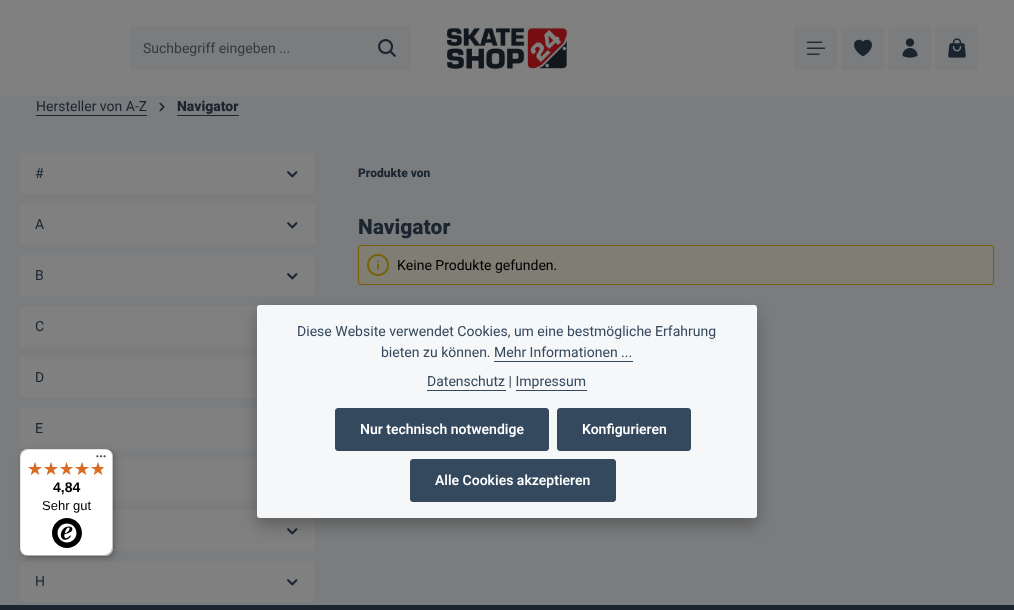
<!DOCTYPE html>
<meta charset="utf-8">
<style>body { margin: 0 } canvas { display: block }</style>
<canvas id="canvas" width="1014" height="610"></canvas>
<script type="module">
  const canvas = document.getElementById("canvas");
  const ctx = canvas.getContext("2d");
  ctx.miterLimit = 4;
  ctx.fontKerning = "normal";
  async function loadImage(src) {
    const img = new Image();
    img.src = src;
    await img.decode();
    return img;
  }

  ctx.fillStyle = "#7b7c7d";
  ctx.fillRect(0, 0, 1014, 610);
  ctx.fillStyle = "#808080";
  ctx.fillRect(0, 0, 1014, 96);
  ctx.fillStyle = "#7b7c7d";
  ctx.beginPath();
  ctx.roundRect(131, 27, 234, 42, [2, 0, 0, 2]);
  ctx.fill();
  ctx.beginPath();
  ctx.moveTo(133, 26);
  ctx.lineTo(365, 26);
  ctx.lineTo(365, 70);
  ctx.lineTo(133, 70);
  ctx.bezierCurveTo(131, 70, 130, 69, 130, 67);
  ctx.lineTo(130, 29);
  ctx.bezierCurveTo(130, 27, 131, 26, 133, 26);
  ctx.closePath();
  ctx.moveTo(133, 27);
  ctx.lineTo(365, 27);
  ctx.lineTo(365, 69);
  ctx.lineTo(133, 69);
  ctx.bezierCurveTo(132, 69, 131, 68, 131, 67);
  ctx.lineTo(131, 29);
  ctx.bezierCurveTo(131, 28, 132, 27, 133, 27);
  ctx.closePath();
  ctx.fill("evenodd");
  ctx.font = "14px Heebo";
  ctx.fillStyle = "#333b43";
  ctx.fillText("Suchbegriff eingeben ...", 143, 53);
  ctx.fillStyle = "#7b7c7d";
  ctx.beginPath();
  ctx.roundRect(364, 26, 47, 44, [0, 3, 3, 0]);
  ctx.fill();
  ctx.drawImage(await loadImage("img1.png"), 378, 39, 18, 18);
  ctx.drawImage(await loadImage("img2.png"), 447, 27, 121, 42);
  ctx.beginPath();
  ctx.roundRect(794, 27, 43, 43, 3);
  ctx.fill();
  ctx.drawImage(await loadImage("img3.png"), 806, 41, 20, 14);
  ctx.beginPath();
  ctx.roundRect(841, 27, 43, 43, 3);
  ctx.fill();
  ctx.drawImage(await loadImage("img4.png"), 854, 39, 18, 18);
  ctx.beginPath();
  ctx.roundRect(888, 27, 43, 43, 3);
  ctx.fill();
  ctx.drawImage(await loadImage("img5.png"), 902, 38, 16, 20);
  ctx.beginPath();
  ctx.roundRect(935, 27, 43, 43, 3);
  ctx.fill();
  ctx.drawImage(await loadImage("img6.png"), 948, 38, 18, 20);
  ctx.fillStyle = "#1a252f";
  ctx.fillText("Hersteller von A-Z", 36, 111);
  ctx.fillRect(36, 115, 111, 1);
  ctx.drawImage(await loadImage("img7.png"), 159, 102, 6, 10);
  ctx.font = "800 14px Heebo";
  ctx.fillText("Navigator", 177, 111);
  ctx.fillRect(177, 115, 62, 1);
  ctx.fillStyle = "#808080";
  ctx.beginPath();
  ctx.roundRect(20, 153, 295, 41, 3);
  ctx.fill();
  ctx.font = "14px Heebo";
  ctx.fillStyle = "#1a252f";
  ctx.fillText("#", 35, 178);
  ctx.drawImage(await loadImage("img8.png"), 287, 171, 11, 7);
  ctx.fillStyle = "#808080";
  ctx.beginPath();
  ctx.roundRect(20, 204, 295, 41, 3);
  ctx.fill();
  ctx.fillStyle = "#1a252f";
  ctx.fillText("A", 35, 229);
  ctx.drawImage(await loadImage("img8.png"), 287, 222, 11, 7);
  ctx.fillStyle = "#808080";
  ctx.beginPath();
  ctx.roundRect(20, 255, 295, 41, 3);
  ctx.fill();
  ctx.fillStyle = "#1a252f";
  ctx.fillText("B", 35, 280);
  ctx.drawImage(await loadImage("img8.png"), 287, 273, 11, 7);
  ctx.fillStyle = "#808080";
  ctx.beginPath();
  ctx.roundRect(20, 306, 295, 41, 3);
  ctx.fill();
  ctx.fillStyle = "#1a252f";
  ctx.fillText("C", 35, 331);
  ctx.fillStyle = "#808080";
  ctx.beginPath();
  ctx.roundRect(20, 357, 295, 41, 3);
  ctx.fill();
  ctx.fillStyle = "#1a252f";
  ctx.fillText("D", 35, 382);
  ctx.fillStyle = "#808080";
  ctx.beginPath();
  ctx.roundRect(20, 408, 295, 41, 3);
  ctx.fill();
  ctx.fillStyle = "#1a252f";
  ctx.fillText("E", 35, 433);
  ctx.fillStyle = "#808080";
  ctx.fillRect(113, 459, 144, 41);
  ctx.beginPath();
  ctx.roundRect(20, 510, 295, 41, 3);
  ctx.fill();
  ctx.drawImage(await loadImage("img8.png"), 287, 528, 11, 7);
  ctx.beginPath();
  ctx.roundRect(20, 561, 295, 41, 3);
  ctx.fill();
  ctx.fillStyle = "#1a252f";
  ctx.fillText("H", 35, 586);
  ctx.drawImage(await loadImage("img8.png"), 287, 579, 11, 7);
  ctx.font = "800 12px Heebo";
  ctx.fillText("Produkte von", 358, 177);
  ctx.font = "800 21px Heebo";
  ctx.fillText("Navigator", 358, 234);
  ctx.fillStyle = "#807d72";
  ctx.beginPath();
  ctx.roundRect(358.5, 245.5, 635, 39, 2.5);
  ctx.fill();
  ctx.strokeStyle = "#786002";
  ctx.stroke();
  ctx.drawImage(await loadImage("img9.png"), 367, 254, 22, 22);
  ctx.font = "14px Heebo";
  ctx.fillStyle = "#000000";
  ctx.fillText("Keine Produkte gefunden.", 397, 270);
  ctx.fillStyle = "#1a252f";
  ctx.fillRect(0, 605, 1014, 5);
  ctx.fillStyle = "rgba(0, 0, 0, 0.25)";
  ctx.filter = "blur(8px)";
  ctx.beginPath();
  ctx.roundRect(257, 313, 500, 213, 3);
  ctx.fill();
  ctx.filter = "none";
  ctx.fillStyle = "#f6f7f9";
  ctx.beginPath();
  ctx.roundRect(257, 305, 500, 213, 3);
  ctx.fill();
  ctx.fillStyle = "#34495e";
  ctx.fillText("Diese Website verwendet Cookies, um eine bestmögliche Erfahrung", 297, 336);
  ctx.fillText("bieten zu können. Mehr Informationen ...", 381, 357);
  ctx.fillRect(494, 361, 139, 1);
  ctx.fillText("Datenschutz | Impressum", 427, 386);
  ctx.fillRect(427, 390, 79, 1);
  ctx.fillRect(516, 390, 71, 1);
  ctx.beginPath();
  ctx.roundRect(335.5, 408.5, 213, 42, 2.5);
  ctx.fill();
  ctx.strokeStyle = "#34495e";
  ctx.stroke();
  ctx.font = "600 14px Heebo";
  ctx.fillStyle = "#ffffff";
  ctx.fillText("Nur technisch notwendige", 360, 434);
  ctx.fillStyle = "#34495e";
  ctx.beginPath();
  ctx.roundRect(557.5, 408.5, 133, 42, 2.5);
  ctx.fill();
  ctx.stroke();
  ctx.fillStyle = "#ffffff";
  ctx.fillText("Konfigurieren", 582, 434);
  ctx.fillStyle = "#34495e";
  ctx.beginPath();
  ctx.roundRect(410.5, 459.5, 205, 42, 2.5);
  ctx.fill();
  ctx.stroke();
  ctx.fillStyle = "#ffffff";
  ctx.fillText("Alle Cookies akzeptieren", 435, 485);
  ctx.fillStyle = "rgba(0, 0, 0, 0.15)";
  ctx.filter = "blur(4px)";
  ctx.beginPath();
  ctx.roundRect(23, 452, 93, 107, 8);
  ctx.fill();
  ctx.filter = "none";
  ctx.filter = "blur(1px)";
  ctx.beginPath();
  ctx.roundRect(21, 450, 93, 107, 8);
  ctx.fill();
  ctx.filter = "none";
  ctx.fillStyle = "#ffffff";
  ctx.beginPath();
  ctx.roundRect(20, 449, 93, 107, 8);
  ctx.fill();
  ctx.fillStyle = "rgba(0, 0, 0, 0.1)";
  ctx.beginPath();
  ctx.moveTo(29, 450);
  ctx.lineTo(106, 450);
  ctx.bezierCurveTo(108, 450, 110, 451, 112, 453);
  ctx.bezierCurveTo(110, 451, 108, 449, 105, 449);
  ctx.lineTo(28, 449);
  ctx.bezierCurveTo(24, 449, 20, 453, 20, 457);
  ctx.lineTo(20, 548);
  ctx.bezierCurveTo(20, 551, 22, 553, 24, 555);
  ctx.bezierCurveTo(22, 553, 21, 551, 21, 549);
  ctx.lineTo(21, 458);
  ctx.bezierCurveTo(21, 454, 25, 450, 29, 450);
  ctx.closePath();
  ctx.fill();
  ctx.fillStyle = "rgba(0, 0, 0, 0.2)";
  ctx.beginPath();
  ctx.moveTo(21, 552);
  ctx.bezierCurveTo(23, 554, 25, 556, 28, 556);
  ctx.lineTo(105, 556);
  ctx.bezierCurveTo(109, 556, 113, 552, 113, 548);
  ctx.lineTo(113, 457);
  ctx.bezierCurveTo(113, 454, 111, 452, 109, 450);
  ctx.bezierCurveTo(111, 452, 112, 454, 112, 456);
  ctx.lineTo(112, 547);
  ctx.bezierCurveTo(112, 551, 108, 555, 104, 555);
  ctx.lineTo(27, 555);
  ctx.bezierCurveTo(25, 555, 23, 554, 21, 552);
  ctx.closePath();
  ctx.fill();
  ctx.fillStyle = "rgba(50, 50, 50, 0.2)";
  ctx.beginPath();
  ctx.moveTo(22, 553);
  ctx.bezierCurveTo(23, 555, 26, 556, 28, 556);
  ctx.lineTo(105, 556);
  ctx.bezierCurveTo(109, 556, 113, 552, 113, 548);
  ctx.lineTo(113, 457);
  ctx.bezierCurveTo(113, 455, 112, 452, 110, 451);
  ctx.bezierCurveTo(111, 452, 112, 454, 112, 456);
  ctx.lineTo(112, 547);
  ctx.bezierCurveTo(112, 552, 109, 555, 104, 555);
  ctx.lineTo(27, 555);
  ctx.bezierCurveTo(25, 555, 23, 554, 22, 553);
  ctx.closePath();
  ctx.fill();
  ctx.fillStyle = "rgba(255, 255, 255, 0.3)";
  ctx.beginPath();
  ctx.moveTo(104, 556);
  ctx.lineTo(105, 556);
  ctx.bezierCurveTo(109, 556, 113, 552, 113, 548);
  ctx.lineTo(113, 457);
  ctx.bezierCurveTo(113, 455, 112, 452, 110, 451);
  ctx.bezierCurveTo(111, 452, 112, 454, 112, 456);
  ctx.lineTo(112, 548);
  ctx.bezierCurveTo(112, 552, 109, 556, 104, 556);
  ctx.closePath();
  ctx.fill();
  ctx.drawImage(await loadImage("img10.png"), 96, 455, 10, 3);
  ctx.drawImage(await loadImage("img11.png"), 28, 462, 14, 13);
  ctx.drawImage(await loadImage("img11.png"), 44, 462, 14, 13);
  ctx.drawImage(await loadImage("img12.png"), 60, 462, 13, 13);
  ctx.drawImage(await loadImage("img11.png"), 75, 462, 14, 13);
  ctx.drawImage(await loadImage("img11.png"), 91, 462, 14, 13);
  ctx.drawImage(await loadImage("img13.png"), 28, 462, 14, 13);
  ctx.drawImage(await loadImage("img13.png"), 44, 462, 14, 13);
  ctx.drawImage(await loadImage("img14.png"), 60, 462, 13, 13);
  ctx.drawImage(await loadImage("img13.png"), 75, 462, 14, 13);
  ctx.drawImage(await loadImage("img15.png"), 91, 462, 12, 13);
  ctx.font = "bold 14px Liberation Sans";
  ctx.fillStyle = "#000000";
  ctx.fillText("4,84", 53, 492);
  ctx.font = "13px Liberation Sans";
  ctx.fillText("Sehr gut", 42, 510);
  ctx.drawImage(await loadImage("img16.png"), 52, 518, 30, 30);
</script>
